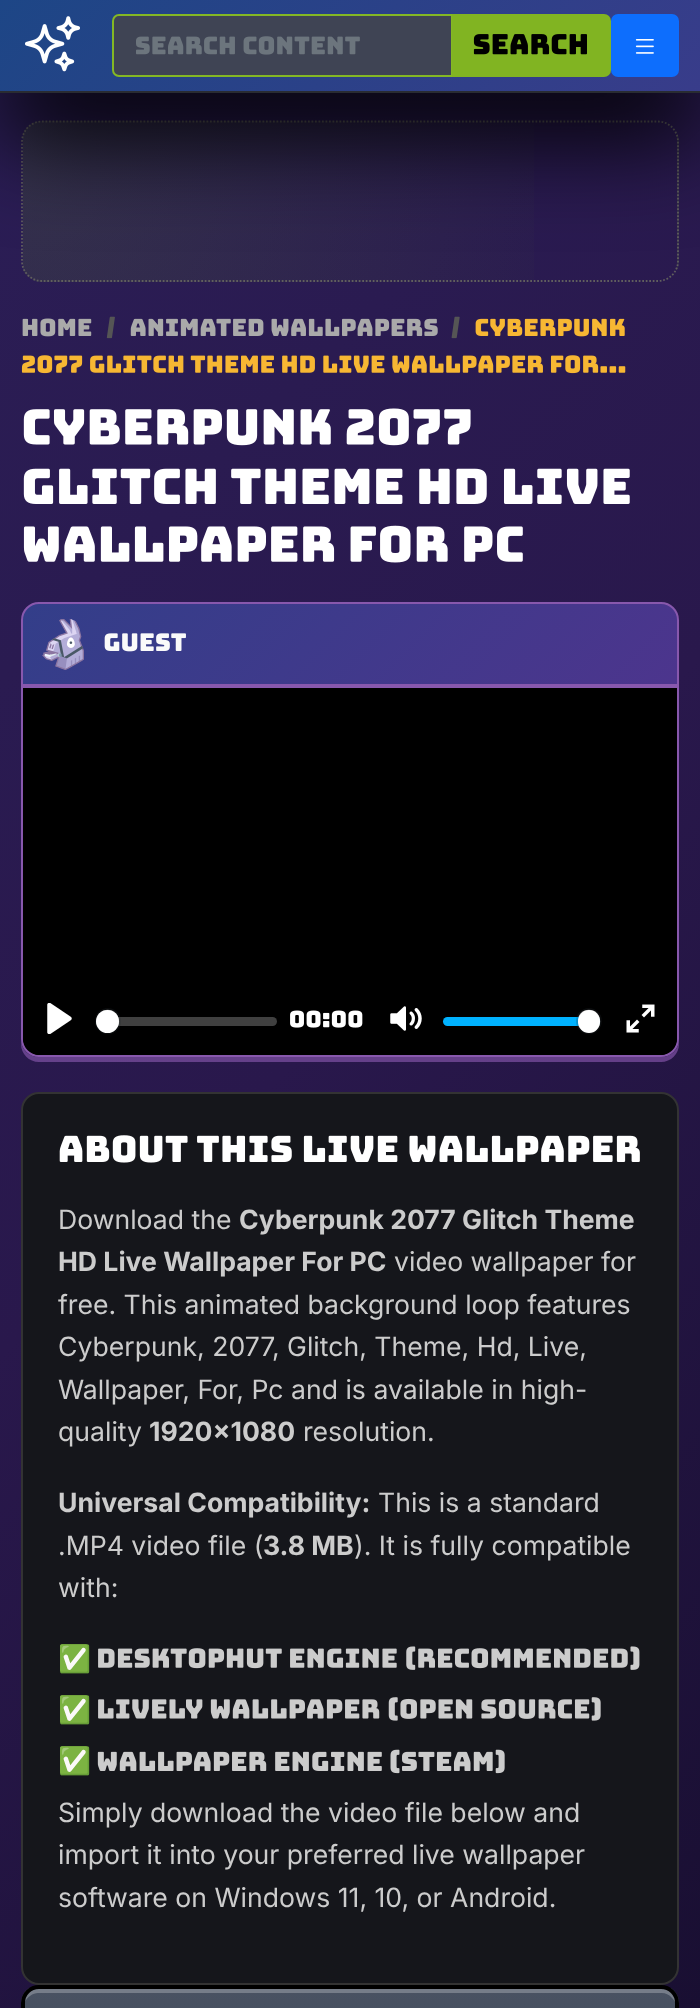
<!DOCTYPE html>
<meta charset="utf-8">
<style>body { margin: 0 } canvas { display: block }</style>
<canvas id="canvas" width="700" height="2008"></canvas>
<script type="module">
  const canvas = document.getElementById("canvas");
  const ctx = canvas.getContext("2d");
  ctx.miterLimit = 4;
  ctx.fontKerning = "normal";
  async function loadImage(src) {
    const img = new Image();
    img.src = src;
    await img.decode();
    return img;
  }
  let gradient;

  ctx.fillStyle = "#ffffff";
  ctx.fillRect(0, 0, 700, 2008);
  gradient = ctx.createLinearGradient(-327, 327, 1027, 1682);
  gradient.addColorStop(0, "#2b1e56");
  gradient.addColorStop(0.5, "#29184c");
  gradient.addColorStop(1, "#190f32");
  ctx.fillStyle = gradient;
  ctx.fillRect(0, 93, 700, 1915);
  ctx.save();
  ctx.beginPath();
  ctx.roundRect(21, 121, 658, 161, 21);
  ctx.clip();
  gradient = ctx.createRadialGradient(23, 12, 0, 23, 12, 664);
  gradient.addColorStop(0, "rgba(110, 166, 29, 0.15)");
  gradient.addColorStop(0.9, "rgba(110, 166, 29, 0)");
  ctx.fillStyle = gradient;
  ctx.fillRect(33, 121, 489, 2);
  gradient = ctx.createRadialGradient(23, 170, 0, 23, 170, 664);
  gradient.addColorStop(0, "rgba(110, 166, 29, 0.15)");
  gradient.addColorStop(0.9, "rgba(110, 166, 29, 0)");
  ctx.fillStyle = gradient;
  ctx.fillRect(23, 123, 511, 157);
  gradient = ctx.createRadialGradient(677, 170, 0, 677, 170, 664);
  gradient.addColorStop(0, "#342f48");
  gradient.addColorStop(0.9, "#2a1a50");
  ctx.fillStyle = gradient;
  ctx.fillRect(677, 133, 2, 137);
  gradient = ctx.createRadialGradient(23, 327, 0, 23, 327, 664);
  gradient.addColorStop(0, "rgba(110, 166, 29, 0.15)");
  gradient.addColorStop(0.9, "rgba(110, 166, 29, 0)");
  ctx.fillStyle = gradient;
  ctx.fillRect(33, 280, 499, 2);
  ctx.restore();
  ctx.beginPath();
  ctx.moveTo(42, 121.5);
  ctx.lineTo(658, 121.5);
  ctx.bezierCurveTo(669, 121.5, 678, 130.5, 678, 142);
  ctx.lineTo(678, 261);
  ctx.bezierCurveTo(678, 272, 669, 281, 658, 281);
  ctx.lineTo(42, 281);
  ctx.bezierCurveTo(31, 281, 22, 272, 22, 261);
  ctx.lineTo(22, 142);
  ctx.bezierCurveTo(22, 130.5, 31, 121.5, 42, 121.5);
  ctx.closePath();
  ctx.strokeStyle = "#605e5e";
  ctx.lineWidth = 1.8;
  ctx.setLineDash([1.75, 1.75]);
  ctx.stroke();
  ctx.fillStyle = "#000000";
  ctx.filter = "blur(48px)";
  ctx.beginPath();
  ctx.rect(0, 44, 700, 93);
  ctx.fill();
  ctx.filter = "none";
  gradient = ctx.createLinearGradient(-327, 327, 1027, 1682);
  gradient.addColorStop(0, "#1d4686");
  gradient.addColorStop(0.5, "#4c358d");
  gradient.addColorStop(1, "#623074");
  ctx.fillStyle = gradient;
  ctx.fillRect(0, 0, 700, 91);
  ctx.fillStyle = "#292c32";
  ctx.fillRect(0, 91, 700, 2);
  ctx.drawImage(await loadImage("img1.png"), 25, 16, 55, 56);
  ctx.fillStyle = "#3f4454";
  ctx.beginPath();
  ctx.roundRect(113, 15, 339, 61, [6, 0, 0, 6]);
  ctx.fill();
  ctx.strokeStyle = "#84b824";
  ctx.lineWidth = 2;
  ctx.setLineDash([]);
  ctx.stroke();
  ctx.drawImage(await loadImage("img2.png"), 136, 36, 224, 19);
  ctx.fillStyle = "#81b422";
  ctx.beginPath();
  ctx.roundRect(452, 14, 159, 63, [0, 7, 7, 0]);
  ctx.fill();
  ctx.drawImage(await loadImage("img3.png"), 473, 34, 114, 21);
  ctx.fillStyle = "#0d6efd";
  ctx.beginPath();
  ctx.roundRect(611, 14, 68, 63, 7);
  ctx.fill();
  ctx.drawImage(await loadImage("img4.png"), 635, 39, 19, 15);
  ctx.drawImage(await loadImage("img5.png"), 22, 318, 70, 19);
  ctx.drawImage(await loadImage("img6.png"), 106, 316, 9, 23);
  ctx.drawImage(await loadImage("img7.png"), 130, 318, 308, 18);
  ctx.drawImage(await loadImage("img8.png"), 451, 316, 9, 23);
  ctx.drawImage(await loadImage("img9.png"), 475, 318, 150, 19);
  ctx.drawImage(await loadImage("img10.png"), 21, 355, 605, 19);
  ctx.drawImage(await loadImage("img11.png"), 23, 408, 448, 38);
  ctx.drawImage(await loadImage("img12.png"), 23, 468, 607, 36);
  ctx.drawImage(await loadImage("img13.png"), 23, 525, 500, 38);
  gradient = ctx.createLinearGradient(-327, 327, 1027, 1682);
  gradient.addColorStop(0, "#1d4686");
  gradient.addColorStop(0.5, "#4c358d");
  gradient.addColorStop(1, "#623074");
  ctx.fillStyle = gradient;
  ctx.beginPath();
  ctx.roundRect(22, 603, 656, 82, [17, 17, 0, 0]);
  ctx.fill();
  ctx.strokeStyle = "#8858ad";
  ctx.stroke();
  ctx.drawImage(await loadImage("img14.png"), 42, 618, 42, 52);
  ctx.drawImage(await loadImage("img15.png"), 104, 633, 82, 19);
  ctx.fillStyle = "rgba(136, 88, 173, 0.64)";
  ctx.beginPath();
  ctx.moveTo(21, 1040);
  ctx.lineTo(21, 1044);
  ctx.bezierCurveTo(21, 1054, 29, 1062, 39, 1062);
  ctx.lineTo(661, 1062);
  ctx.bezierCurveTo(671, 1062, 679, 1054, 679, 1044);
  ctx.lineTo(679, 1040);
  ctx.bezierCurveTo(679, 1049, 671, 1057, 662, 1057);
  ctx.lineTo(38, 1057);
  ctx.bezierCurveTo(29, 1057, 21, 1049, 21, 1040);
  ctx.closePath();
  ctx.fill();
  ctx.fillStyle = "#000000";
  ctx.beginPath();
  ctx.roundRect(22, 687, 656, 369, [0, 0, 17, 17]);
  ctx.fill();
  ctx.stroke();
  ctx.beginPath();
  ctx.roundRect(23, 688, 654, 367, [0, 0, 18, 18]);
  ctx.fill();
  ctx.drawImage(await loadImage("img16.png"), 95, 1008, 507, 26);
  gradient = ctx.createLinearGradient(350, 959, 350, 1055);
  gradient.addColorStop(0, "rgba(0, 0, 0, 0)");
  gradient.addColorStop(1, "rgba(0, 0, 0, 0.75)");
  ctx.fillStyle = gradient;
  ctx.beginPath();
  ctx.roundRect(23, 959, 654, 96, [0, 0, 18, 18]);
  ctx.fill();
  ctx.drawImage(await loadImage("img17.png"), 47, 1003, 25, 31);
  ctx.fillStyle = "rgba(255, 255, 255, 0.25)";
  ctx.beginPath();
  ctx.roundRect(96, 1017, 181, 9, 4.5);
  ctx.fill();
  ctx.beginPath();
  ctx.arc(108, 1021, 12, 0, Math.PI * 2);
  ctx.strokeStyle = "rgba(35, 40, 47, 0.2)";
  ctx.stroke();
  ctx.fillStyle = "rgba(35, 40, 47, 0.15)";
  ctx.filter = "blur(1px)";
  ctx.beginPath();
  ctx.roundRect(96, 1012, 23, 22, 11);
  ctx.fill();
  ctx.filter = "none";
  ctx.fillStyle = "#ffffff";
  ctx.beginPath();
  ctx.arc(107.5, 1021.5, 11.5, 0, Math.PI * 2);
  ctx.fill();
  ctx.drawImage(await loadImage("img18.png"), 290, 1010, 73, 18);
  ctx.drawImage(await loadImage("img19.png"), 390, 1006, 32, 25);
  ctx.fillStyle = "#00b2ff";
  ctx.beginPath();
  ctx.roundRect(443, 1017, 157, 9, 4.5);
  ctx.fill();
  ctx.beginPath();
  ctx.arc(589, 1021, 12, 0, Math.PI * 2);
  ctx.stroke();
  ctx.fillStyle = "rgba(35, 40, 47, 0.15)";
  ctx.filter = "blur(1px)";
  ctx.beginPath();
  ctx.roundRect(578, 1012, 22, 22, 11);
  ctx.fill();
  ctx.filter = "none";
  ctx.fillStyle = "#ffffff";
  ctx.beginPath();
  ctx.roundRect(578, 1010, 22, 23, 11);
  ctx.fill();
  ctx.drawImage(await loadImage("img20.png"), 626, 1004, 29, 29);
  ctx.fillStyle = "#15161b";
  ctx.beginPath();
  ctx.roundRect(22, 1093, 656, 891, 17);
  ctx.fill();
  ctx.strokeStyle = "#333333";
  ctx.stroke();
  ctx.drawImage(await loadImage("img21.png"), 59, 1135, 581, 28);
  ctx.font = "26.6px Inter";
  ctx.fillStyle = "#cccccc";
  ctx.fillText("Download the", 58, 1229);
  ctx.font = "bold 26.6px Inter";
  ctx.fillText("Cyberpunk 2077 Glitch Theme", 239, 1229);
  ctx.fillText("HD Live Wallpaper For PC", 58, 1271);
  ctx.font = "26.6px Inter";
  ctx.fillText("video wallpaper for", 394, 1271);
  ctx.fillText("free. This animated background loop features", 58, 1314);
  ctx.fillText("Cyberpunk, 2077, Glitch, Theme, Hd, Live,", 58, 1356);
  ctx.fillText("Wallpaper, For, Pc and is available in high-", 58, 1399);
  ctx.fillText("quality", 58, 1441);
  ctx.font = "bold 26.6px Inter";
  ctx.fillText("1920x1080", 149, 1441);
  ctx.font = "26.6px Inter";
  ctx.fillText("resolution.", 303, 1441);
  ctx.font = "bold 26.6px Inter";
  ctx.fillText("Universal Compatibility:", 58, 1512);
  ctx.font = "26.6px Inter";
  ctx.fillText("This is a standard", 378, 1512);
  ctx.fillText(".MP4 video file (", 58, 1555);
  ctx.font = "bold 26.6px Inter";
  ctx.fillText("3.8 MB", 263, 1555);
  ctx.font = "26.6px Inter";
  ctx.fillText("). It is fully compatible", 354, 1555);
  ctx.fillText("with:", 58, 1597);
  ctx.font = "26.6px Noto Color Emoji";
  ctx.fillText("✅", 58, 1668);
  ctx.drawImage(await loadImage("img22.png"), 98, 1648, 299, 21);
  ctx.drawImage(await loadImage("img23.png"), 406, 1646, 234, 24);
  ctx.fillText("✅", 58, 1719);
  ctx.drawImage(await loadImage("img24.png"), 98, 1699, 282, 20);
  ctx.drawImage(await loadImage("img25.png"), 388, 1697, 213, 24);
  ctx.fillText("✅", 58, 1770);
  ctx.drawImage(await loadImage("img26.png"), 97, 1751, 285, 20);
  ctx.drawImage(await loadImage("img27.png"), 390, 1749, 115, 25);
  ctx.font = "26.6px Inter";
  ctx.fillText("Simply download the video file below and", 58, 1822);
  ctx.fillText("import it into your preferred live wallpaper", 58, 1864);
  ctx.fillText("software on Windows 11, 10, or Android.", 58, 1907);
  ctx.save();
  ctx.beginPath();
  ctx.roundRect(21, 1985, 658, 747, 18);
  ctx.clip();
  gradient = ctx.createLinearGradient(350, 1988, 350, 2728);
  gradient.addColorStop(0, "#495262");
  gradient.addColorStop(0.75, "#262e3e");
  ctx.fillStyle = gradient;
  ctx.fillRect(21, 1988, 658, 20);
  ctx.restore();
  ctx.fillStyle = "#767d89";
  ctx.beginPath();
  ctx.moveTo(38, 1993);
  ctx.lineTo(662, 1993);
  ctx.bezierCurveTo(669, 1993, 676, 2000, 676, 2007);
  ctx.lineTo(676, 2002);
  ctx.bezierCurveTo(676, 1994, 670, 1988, 662, 1988);
  ctx.lineTo(39, 1988);
  ctx.bezierCurveTo(31, 1988, 25, 1994, 25, 2002);
  ctx.bezierCurveTo(27, 1997, 33, 1993, 38, 1993);
  ctx.closePath();
  ctx.fill();
  ctx.beginPath();
  ctx.roundRect(23, 1987, 654, 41, 16);
  ctx.strokeStyle = "#000000";
  ctx.lineWidth = 4;
  ctx.stroke();
</script>
